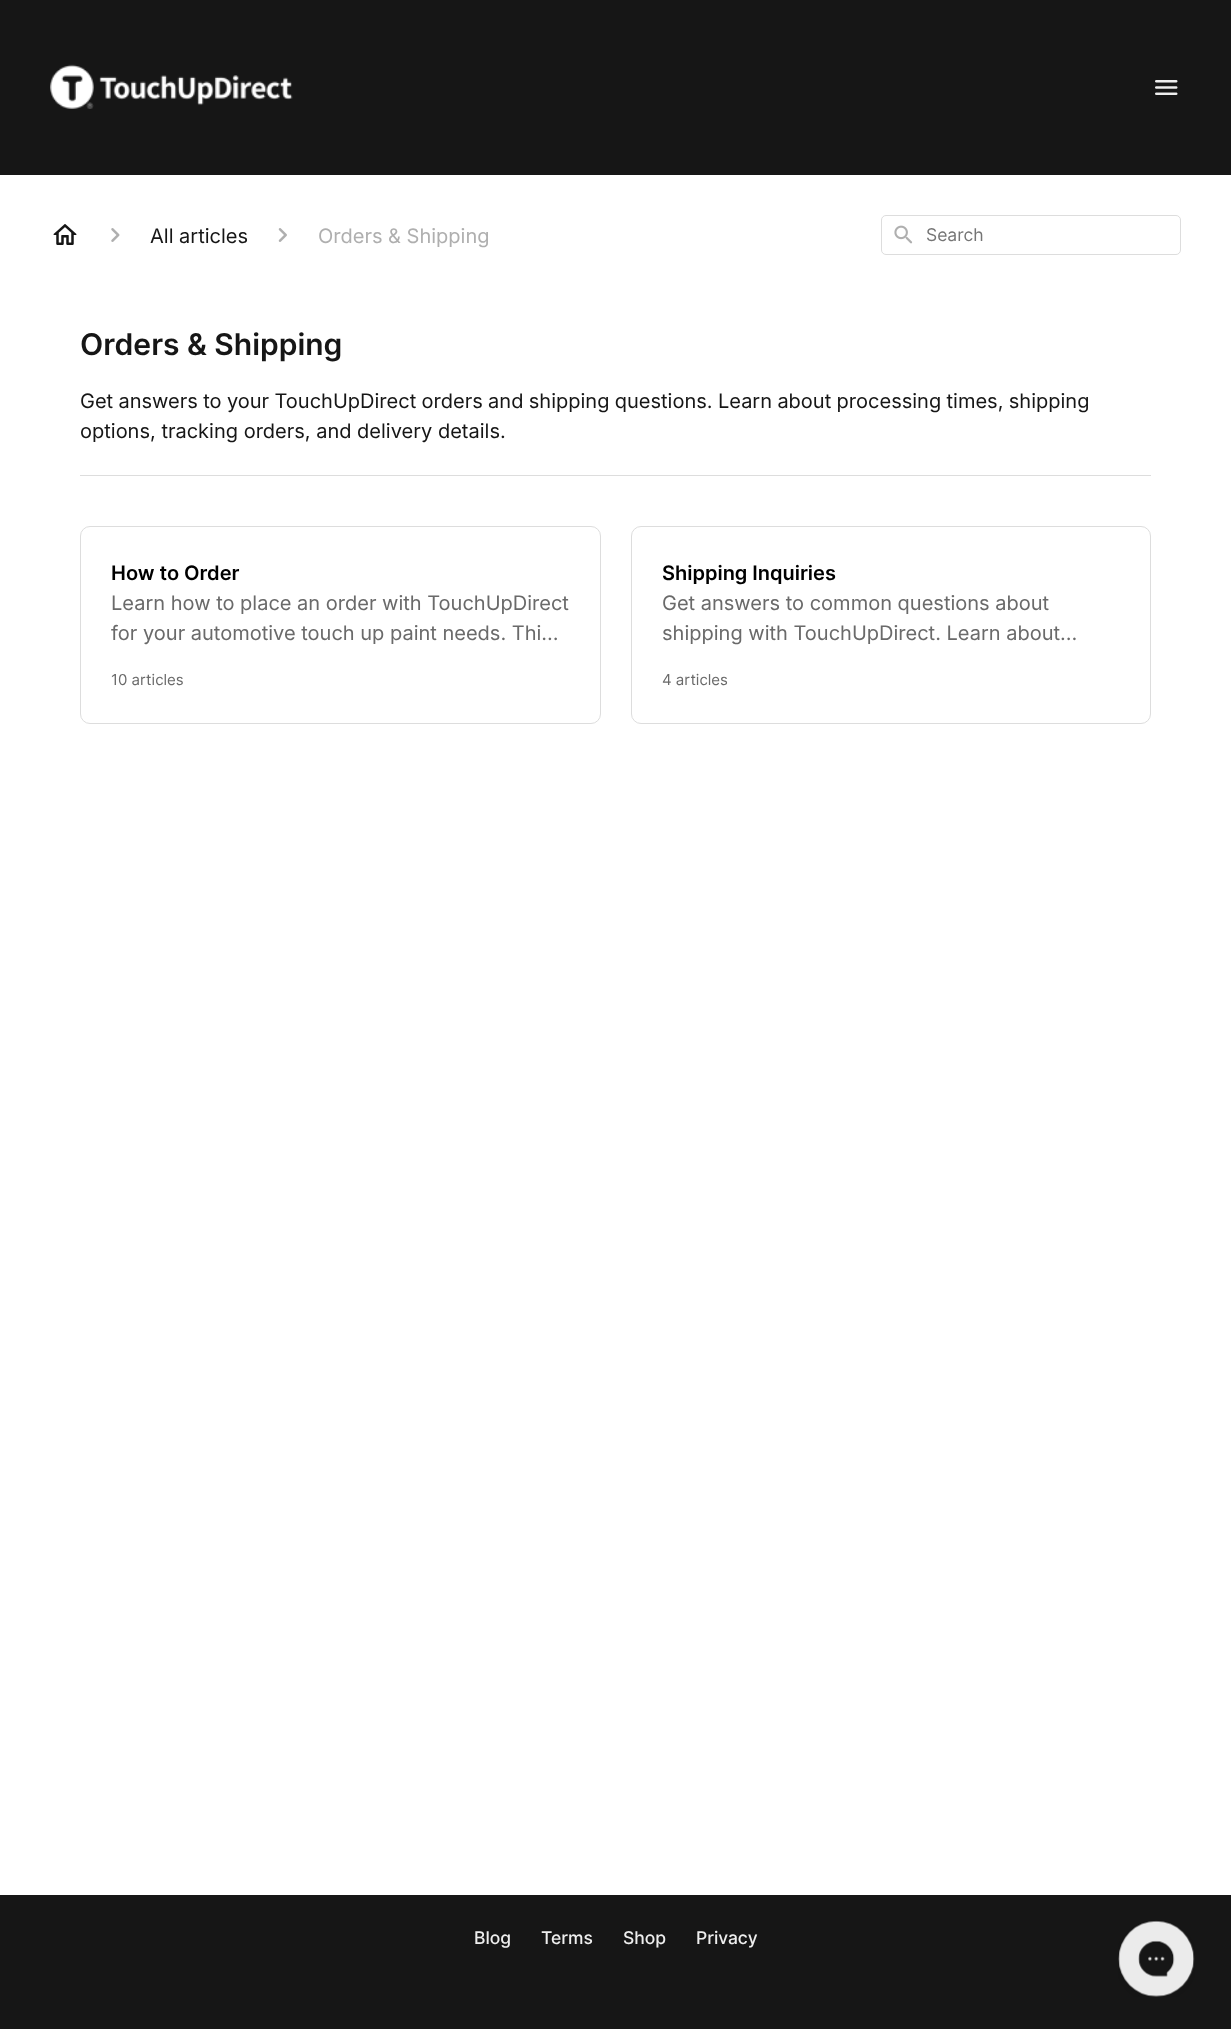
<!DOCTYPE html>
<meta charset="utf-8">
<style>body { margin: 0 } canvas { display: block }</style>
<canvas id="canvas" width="1231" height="2029"></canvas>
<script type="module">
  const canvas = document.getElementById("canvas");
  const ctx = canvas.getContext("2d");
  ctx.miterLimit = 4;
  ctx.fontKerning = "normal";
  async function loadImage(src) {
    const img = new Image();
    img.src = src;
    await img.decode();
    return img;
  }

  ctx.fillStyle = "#ffffff";
  ctx.fillRect(0, 0, 1231, 2029);
  ctx.fillStyle = "#161616";
  ctx.fillRect(0, 0, 1231, 175);
  ctx.drawImage(await loadImage("img1.png"), 50, 64, 243, 45);
  ctx.drawImage(await loadImage("img2.png"), 1155, 80, 23, 15);
  ctx.drawImage(await loadImage("img3.png"), 53, 224, 24, 21);
  ctx.drawImage(await loadImage("img4.png"), 111, 228, 9, 14);
  ctx.font = "20px Inter";
  ctx.fillText("All articles", 150, 243);
  ctx.drawImage(await loadImage("img5.png"), 278, 228, 9, 14);
  ctx.fillStyle = "#afafaf";
  ctx.fillText("Orders & Shipping", 318, 243);
  ctx.beginPath();
  ctx.roundRect(881.5, 215.5, 299, 39, 4.5);
  ctx.strokeStyle = "#dddddd";
  ctx.stroke();
  ctx.drawImage(await loadImage("img6.png"), 894, 225, 19, 19);
  ctx.font = "17.5px 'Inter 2'";
  ctx.fillStyle = "#757575";
  ctx.fillText("Search", 926, 241);
  ctx.fillStyle = "#dddddd";
  ctx.fillRect(80, 475, 1071, 1);
  ctx.font = "600 30px Inter";
  ctx.fillStyle = "#161616";
  ctx.fillText("Orders & Shipping", 80, 355);
  ctx.wordSpacing = "-0.25px";
  ctx.font = "20px Inter";
  ctx.fillText("Get answers to your TouchUpDirect orders and shipping questions. Learn about processing times, shipping", 80, 408);
  ctx.wordSpacing = "0px";
  ctx.fillText("options, tracking orders, and delivery details.", 80, 438);
  ctx.beginPath();
  ctx.roundRect(80.5, 526.5, 520, 197, 9.5);
  ctx.stroke();
  ctx.font = "600 20px Inter";
  ctx.fillStyle = "#000000";
  ctx.fillText("How to Order", 111, 580);
  ctx.font = "20px Inter";
  ctx.fillStyle = "#6a6a6a";
  ctx.fillText("Learn how to place an order with TouchUpDirect", 111, 610);
  ctx.fillText("for your automotive touch up paint needs. Thi…", 111, 640);
  ctx.font = "15px 'Inter 2'";
  ctx.fillText("10 articles", 111, 685);
  ctx.beginPath();
  ctx.roundRect(631.5, 526.5, 519, 197, 9.5);
  ctx.stroke();
  ctx.font = "600 20px Inter";
  ctx.fillStyle = "#000000";
  ctx.fillText("Shipping Inquiries", 662, 580);
  ctx.font = "20px Inter";
  ctx.fillStyle = "#6a6a6a";
  ctx.fillText("Get answers to common questions about", 662, 610);
  ctx.fillText("shipping with TouchUpDirect. Learn about…", 662, 640);
  ctx.font = "15px 'Inter 2'";
  ctx.fillText("4 articles", 662, 685);
  ctx.fillStyle = "#161616";
  ctx.fillRect(0, 1895, 1231, 134);
  ctx.font = "500 17.5px Inter";
  ctx.fillStyle = "#eeeeee";
  ctx.fillText("Blog", 474, 1944);
  ctx.fillText("Terms", 541, 1944);
  ctx.fillText("Shop", 623, 1944);
  ctx.fillText("Privacy", 696, 1944);
  ctx.drawImage(await loadImage("img7.png"), 1118, 1920, 77, 77);
</script>
